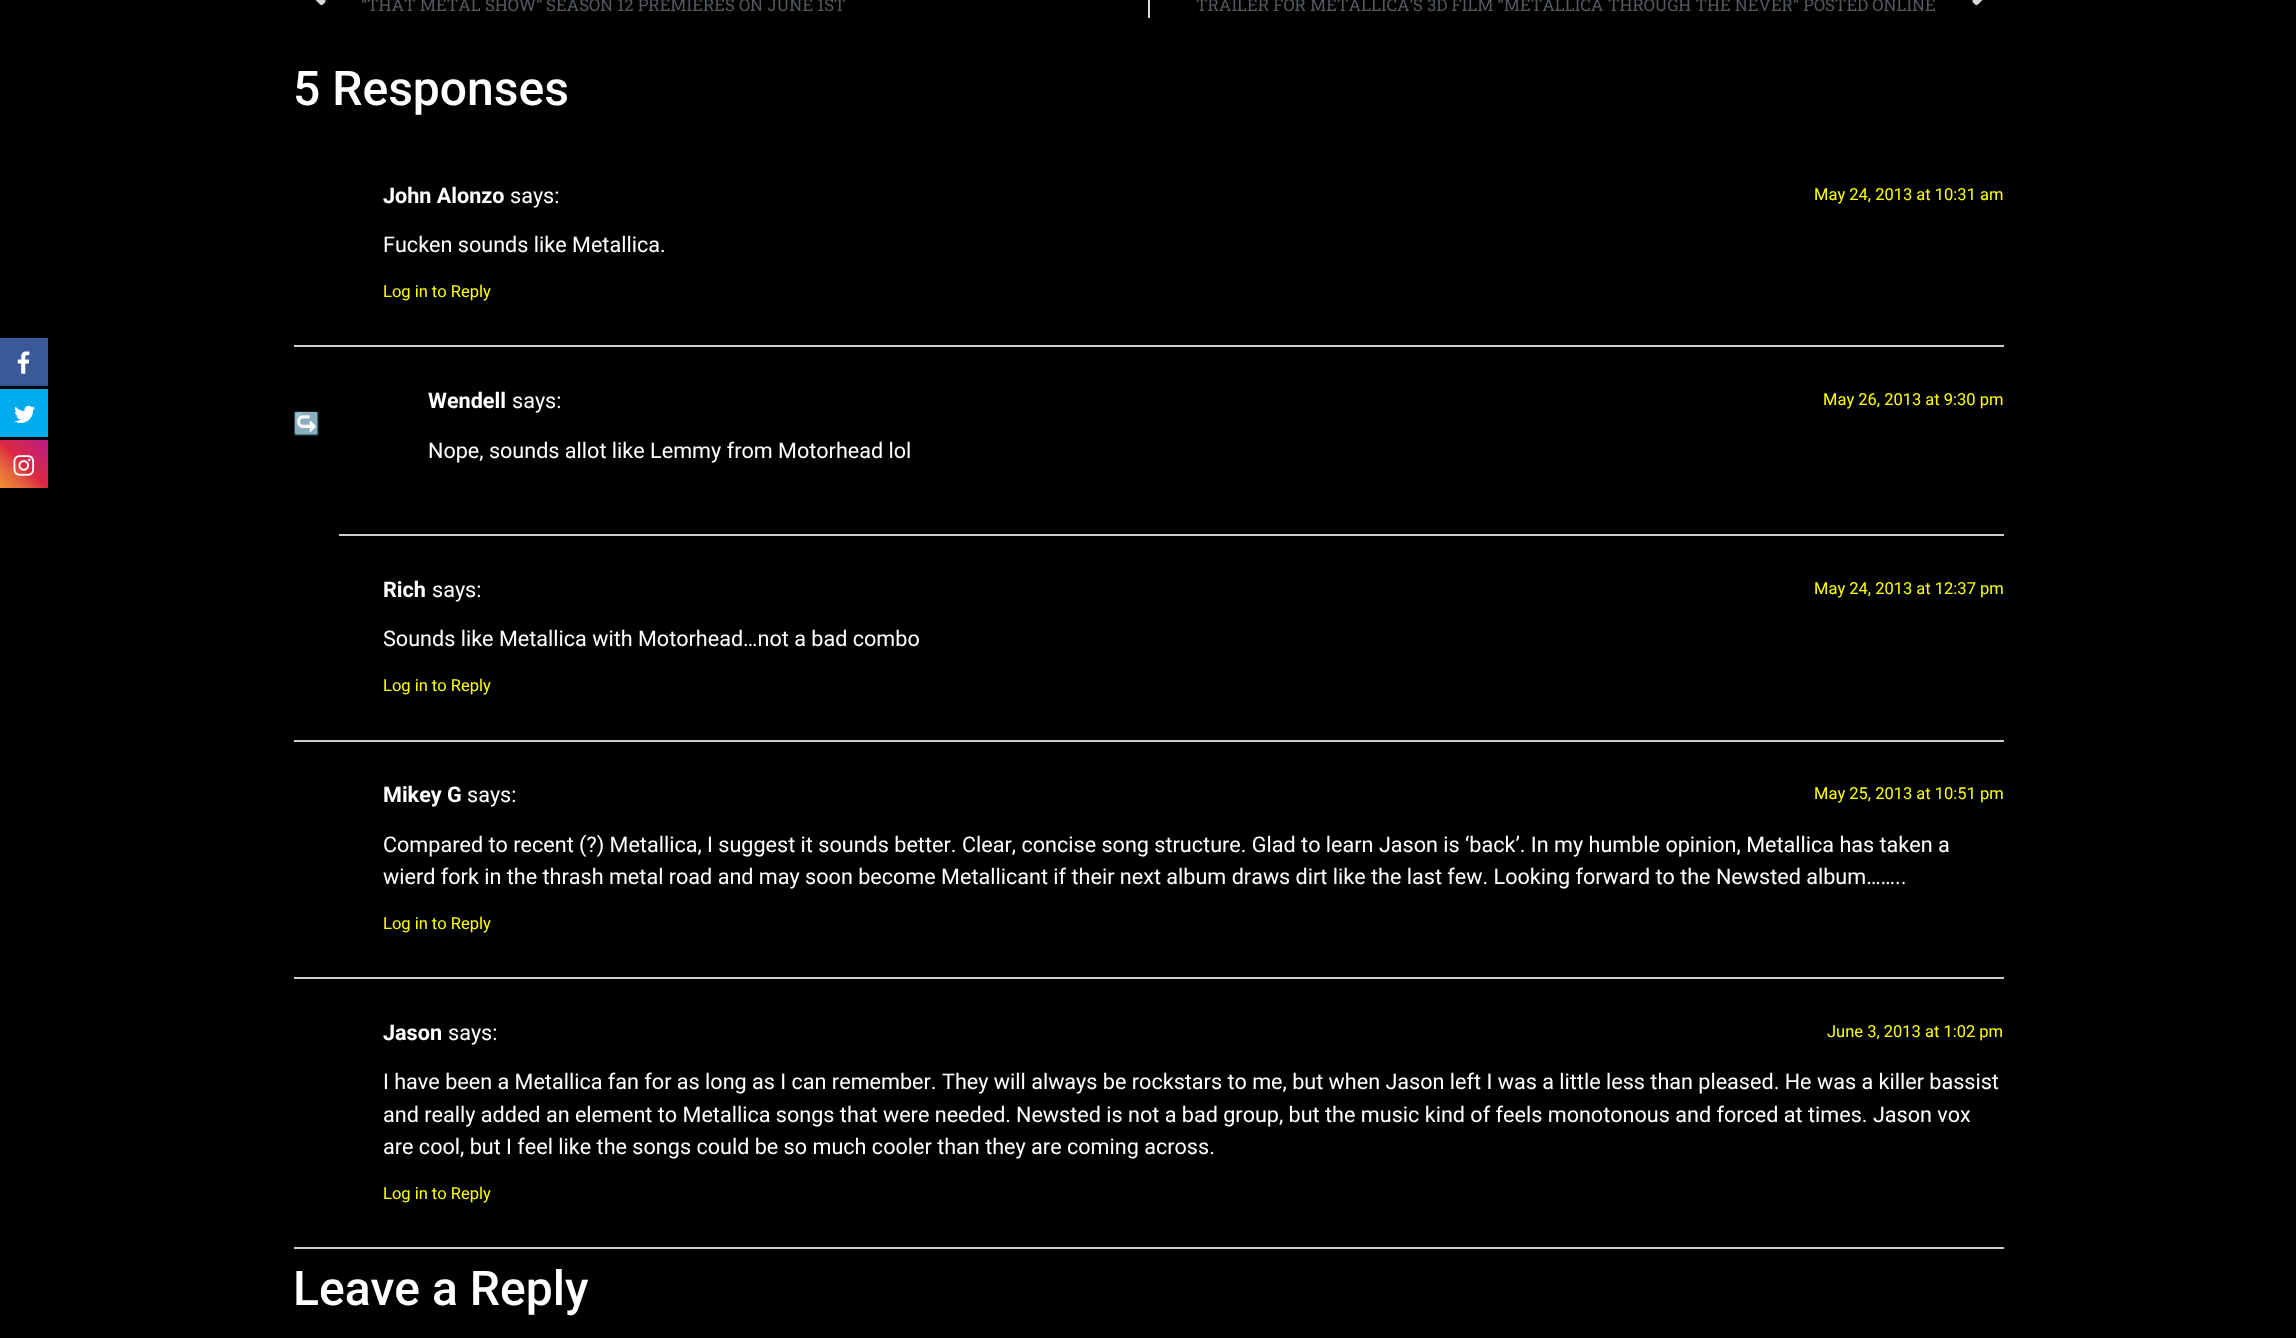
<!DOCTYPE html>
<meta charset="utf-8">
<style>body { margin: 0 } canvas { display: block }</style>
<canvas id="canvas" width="2296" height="1338"></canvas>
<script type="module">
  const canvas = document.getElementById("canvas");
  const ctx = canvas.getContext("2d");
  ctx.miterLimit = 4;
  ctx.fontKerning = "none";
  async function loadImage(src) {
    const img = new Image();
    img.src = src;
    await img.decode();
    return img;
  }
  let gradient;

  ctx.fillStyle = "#000000";
  ctx.fillRect(0, 0, 2296, 1338);
  ctx.fillStyle = "#3b5998";
  ctx.fillRect(0, 338, 48, 48);
  ctx.drawImage(await loadImage("img1.png"), 17, 351, 13, 23);
  ctx.fillStyle = "#00aced";
  ctx.fillRect(0, 389, 48, 48);
  ctx.drawImage(await loadImage("img2.png"), 14, 405, 21, 18);
  gradient = ctx.createLinearGradient(0, 488, 48, 440);
  gradient.addColorStop(0, "#f09433");
  gradient.addColorStop(0.25, "#e6683c");
  gradient.addColorStop(0.5, "#dc2743");
  gradient.addColorStop(0.75, "#cc2366");
  gradient.addColorStop(1, "#bc1888");
  ctx.fillStyle = gradient;
  ctx.fillRect(0, 440, 48, 48);
  ctx.drawImage(await loadImage("img3.png"), 13, 455, 22, 21);
  ctx.drawImage(await loadImage("img4.png"), 315, 0, 11, 6);
  ctx.save();
  ctx.beginPath();
  ctx.rect(362, 0, 484, 18);
  ctx.clip();
  ctx.font = "16.8px Roboto Slab";
  ctx.fillStyle = "#54595f";
  ctx.fillText("“THAT METAL SHOW”", 361, 11);
  ctx.fillText("SEASON 12 PREMIERES ON JUNE 1ST", 546, 11);
  ctx.restore();
  ctx.fillStyle = "#d5d8dc";
  ctx.fillRect(1148, 0, 2, 18);
  ctx.font = "16.8px Roboto Slab";
  ctx.fillStyle = "#54595f";
  ctx.fillText("TRAILER FOR METALLICA’S 3D FILM “METALLICA", 1196, 11);
  ctx.fillText("THROUGH THE NEVER” POSTED ONLINE", 1608, 11);
  ctx.drawImage(await loadImage("img5.png"), 1972, 0, 11, 6);
  ctx.font = "500 48px Roboto";
  ctx.fillStyle = "#ffffff";
  ctx.fillText("5 Responses", 293, 105);
  ctx.fillStyle = "#cccccc";
  ctx.fillRect(294, 345, 1710, 2);
  ctx.font = "bold 21.6px Roboto";
  ctx.fillStyle = "#ffffff";
  ctx.fillText("John Alonzo", 383, 203);
  ctx.font = "21.6px Roboto";
  ctx.fillText("says:", 510, 203);
  ctx.font = "16.5px Roboto";
  ctx.fillStyle = "#feff00";
  ctx.fillText("May 24, 2013 at 10:31 am", 1814, 200);
  ctx.font = "21.6px Roboto";
  ctx.fillStyle = "#ffffff";
  ctx.fillText("Fucken sounds like Metallica.", 383, 252);
  ctx.font = "16.5px Roboto";
  ctx.fillStyle = "#feff00";
  ctx.fillText("Log in to Reply", 383, 297);
  ctx.font = "21.6px Noto Color Emoji";
  ctx.fillStyle = "#ffffff";
  ctx.fillText("↪", 293, 431);
  ctx.fillStyle = "#cccccc";
  ctx.fillRect(339, 534, 1665, 2);
  ctx.font = "bold 21.6px Roboto";
  ctx.fillStyle = "#ffffff";
  ctx.fillText("Wendell", 428, 408);
  ctx.font = "21.6px Roboto";
  ctx.fillText("says:", 512, 408);
  ctx.font = "16.5px Roboto";
  ctx.fillStyle = "#feff00";
  ctx.fillText("May 26, 2013 at 9:30 pm", 1823, 405);
  ctx.font = "21.6px Roboto";
  ctx.fillStyle = "#ffffff";
  ctx.fillText("Nope, sounds allot like Lemmy from Motorhead lol", 428, 458);
  ctx.fillStyle = "#cccccc";
  ctx.fillRect(294, 740, 1710, 2);
  ctx.font = "bold 21.6px Roboto";
  ctx.fillStyle = "#ffffff";
  ctx.fillText("Rich", 383, 597);
  ctx.font = "21.6px Roboto";
  ctx.fillText("says:", 432, 597);
  ctx.font = "16.5px Roboto";
  ctx.fillStyle = "#feff00";
  ctx.fillText("May 24, 2013 at 12:37 pm", 1814, 594);
  ctx.font = "21.6px Roboto";
  ctx.fillStyle = "#ffffff";
  ctx.fillText("Sounds like Metallica with Motorhead…not a bad combo", 383, 646);
  ctx.font = "16.5px Roboto";
  ctx.fillStyle = "#feff00";
  ctx.fillText("Log in to Reply", 383, 691);
  ctx.fillStyle = "#cccccc";
  ctx.fillRect(294, 977, 1710, 2);
  ctx.font = "bold 21.6px Roboto";
  ctx.fillStyle = "#ffffff";
  ctx.fillText("Mikey G", 383, 802);
  ctx.font = "21.6px Roboto";
  ctx.fillText("says:", 467, 802);
  ctx.font = "16.5px Roboto";
  ctx.fillStyle = "#feff00";
  ctx.fillText("May 25, 2013 at 10:51 pm", 1814, 799);
  ctx.font = "21.6px Roboto";
  ctx.fillStyle = "#ffffff";
  ctx.fillText("Compared to recent (?) Metallica, I suggest it sounds better.", 383, 852);
  ctx.fillText("Clear, concise song structure. Glad to learn Jason is ‘back’. In my humble opinion, Metallica has taken a", 962, 852);
  ctx.fillText("wierd fork in the thrash metal road and may soon become Metallicant if their next album draws dirt like the last few. Looking forward to the Newsted album……..", 383, 884);
  ctx.font = "16.5px Roboto";
  ctx.fillStyle = "#feff00";
  ctx.fillText("Log in to Reply", 383, 929);
  ctx.fillStyle = "#cccccc";
  ctx.fillRect(294, 1247, 1710, 2);
  ctx.font = "bold 21.6px Roboto";
  ctx.fillStyle = "#ffffff";
  ctx.fillText("Jason", 383, 1040);
  ctx.font = "21.6px Roboto";
  ctx.fillText("says:", 448, 1040);
  ctx.font = "16.5px Roboto";
  ctx.fillStyle = "#feff00";
  ctx.fillText("June 3, 2013 at 1:02 pm", 1827, 1037);
  ctx.font = "21.6px Roboto";
  ctx.fillStyle = "#ffffff";
  ctx.fillText("I have been a Metallica fan for as long as I can remember.", 383, 1089);
  ctx.fillText("They will always be rockstars to me, but when Jason left I was a little less than pleased. He was a killer bassist", 942, 1089);
  ctx.fillText("and really added an element to Metallica songs that were needed.", 383, 1122);
  ctx.fillText("Newsted is not a bad group, but the music kind of feels monotonous and forced at times. Jason vox", 1016, 1122);
  ctx.fillText("are cool, but I feel like the songs could be so much cooler than they are coming across.", 383, 1154);
  ctx.font = "16.5px Roboto";
  ctx.fillStyle = "#feff00";
  ctx.fillText("Log in to Reply", 383, 1199);
  ctx.font = "500 48px Roboto";
  ctx.fillStyle = "#ffffff";
  ctx.fillText("Leave a Reply", 293, 1305);
</script>
